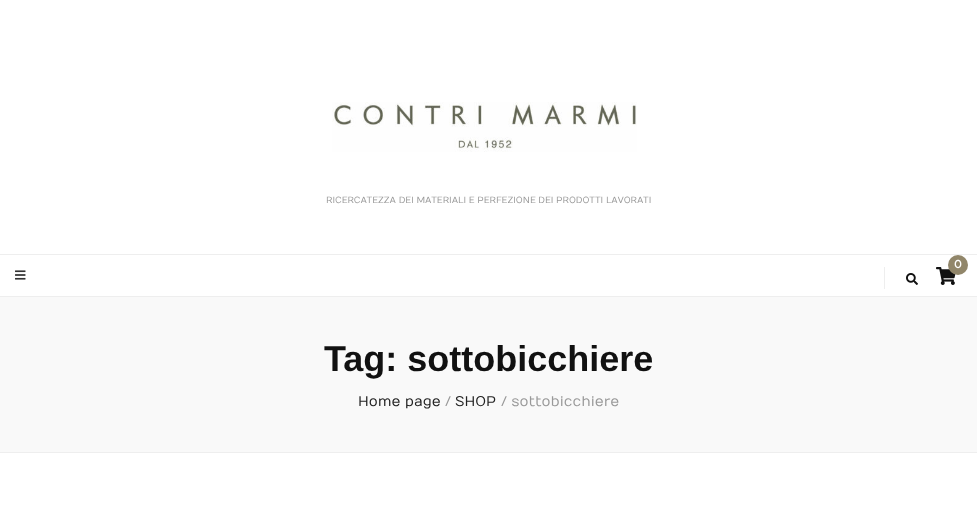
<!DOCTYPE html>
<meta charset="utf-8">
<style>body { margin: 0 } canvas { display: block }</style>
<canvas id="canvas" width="977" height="517"></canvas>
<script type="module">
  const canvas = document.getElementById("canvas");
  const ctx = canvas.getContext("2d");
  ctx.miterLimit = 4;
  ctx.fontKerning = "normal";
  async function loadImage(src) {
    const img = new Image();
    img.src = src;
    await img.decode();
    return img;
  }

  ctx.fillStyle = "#ffffff";
  ctx.fillRect(0, 0, 977, 517);
  ctx.drawImage(await loadImage("img1.png"), 332, 102, 305, 50);
  ctx.font = "9px Numans";
  ctx.fillStyle = "#999999";
  ctx.fillText("RICERCATEZZA DEI MATERIALI E PERFEZIONE DEI PRODOTTI LAVORATI", 326, 203);
  ctx.fillStyle = "#eeeeee";
  ctx.fillRect(0, 254, 977, 1);
  ctx.fillRect(0, 296, 977, 1);
  ctx.fillRect(884, 267, 1, 22);
  ctx.drawImage(await loadImage("img2.png"), 936, 267, 20, 18);
  ctx.fillStyle = "#91866a";
  ctx.beginPath();
  ctx.arc(958, 265, 10, 0, Math.PI * 2);
  ctx.fill();
  ctx.font = "bold 11px Numans";
  ctx.fillStyle = "#ffffff";
  ctx.fillText("0", 954, 268);
  ctx.drawImage(await loadImage("img3.png"), 906, 273, 12, 12);
  ctx.drawImage(await loadImage("img4.png"), 15, 270, 11, 10);
  ctx.fillStyle = "#f9f9f9";
  ctx.fillRect(0, 297, 977, 155);
  ctx.fillStyle = "#eeeeee";
  ctx.fillRect(0, 452, 977, 1);
  ctx.font = "bold 36px Liberation Sans";
  ctx.fillStyle = "#111111";
  ctx.fillText("Tag: sottobicchiere", 324, 371);
  ctx.font = "14px Numans";
  ctx.fillStyle = "#222222";
  ctx.fillText("Home page", 358, 406);
  ctx.fillStyle = "#999999";
  ctx.fillText("/", 445, 406);
  ctx.fillStyle = "#222222";
  ctx.fillText("SHOP", 455, 406);
  ctx.fillStyle = "#999999";
  ctx.fillText("/ sottobicchiere", 501, 406);
</script>
